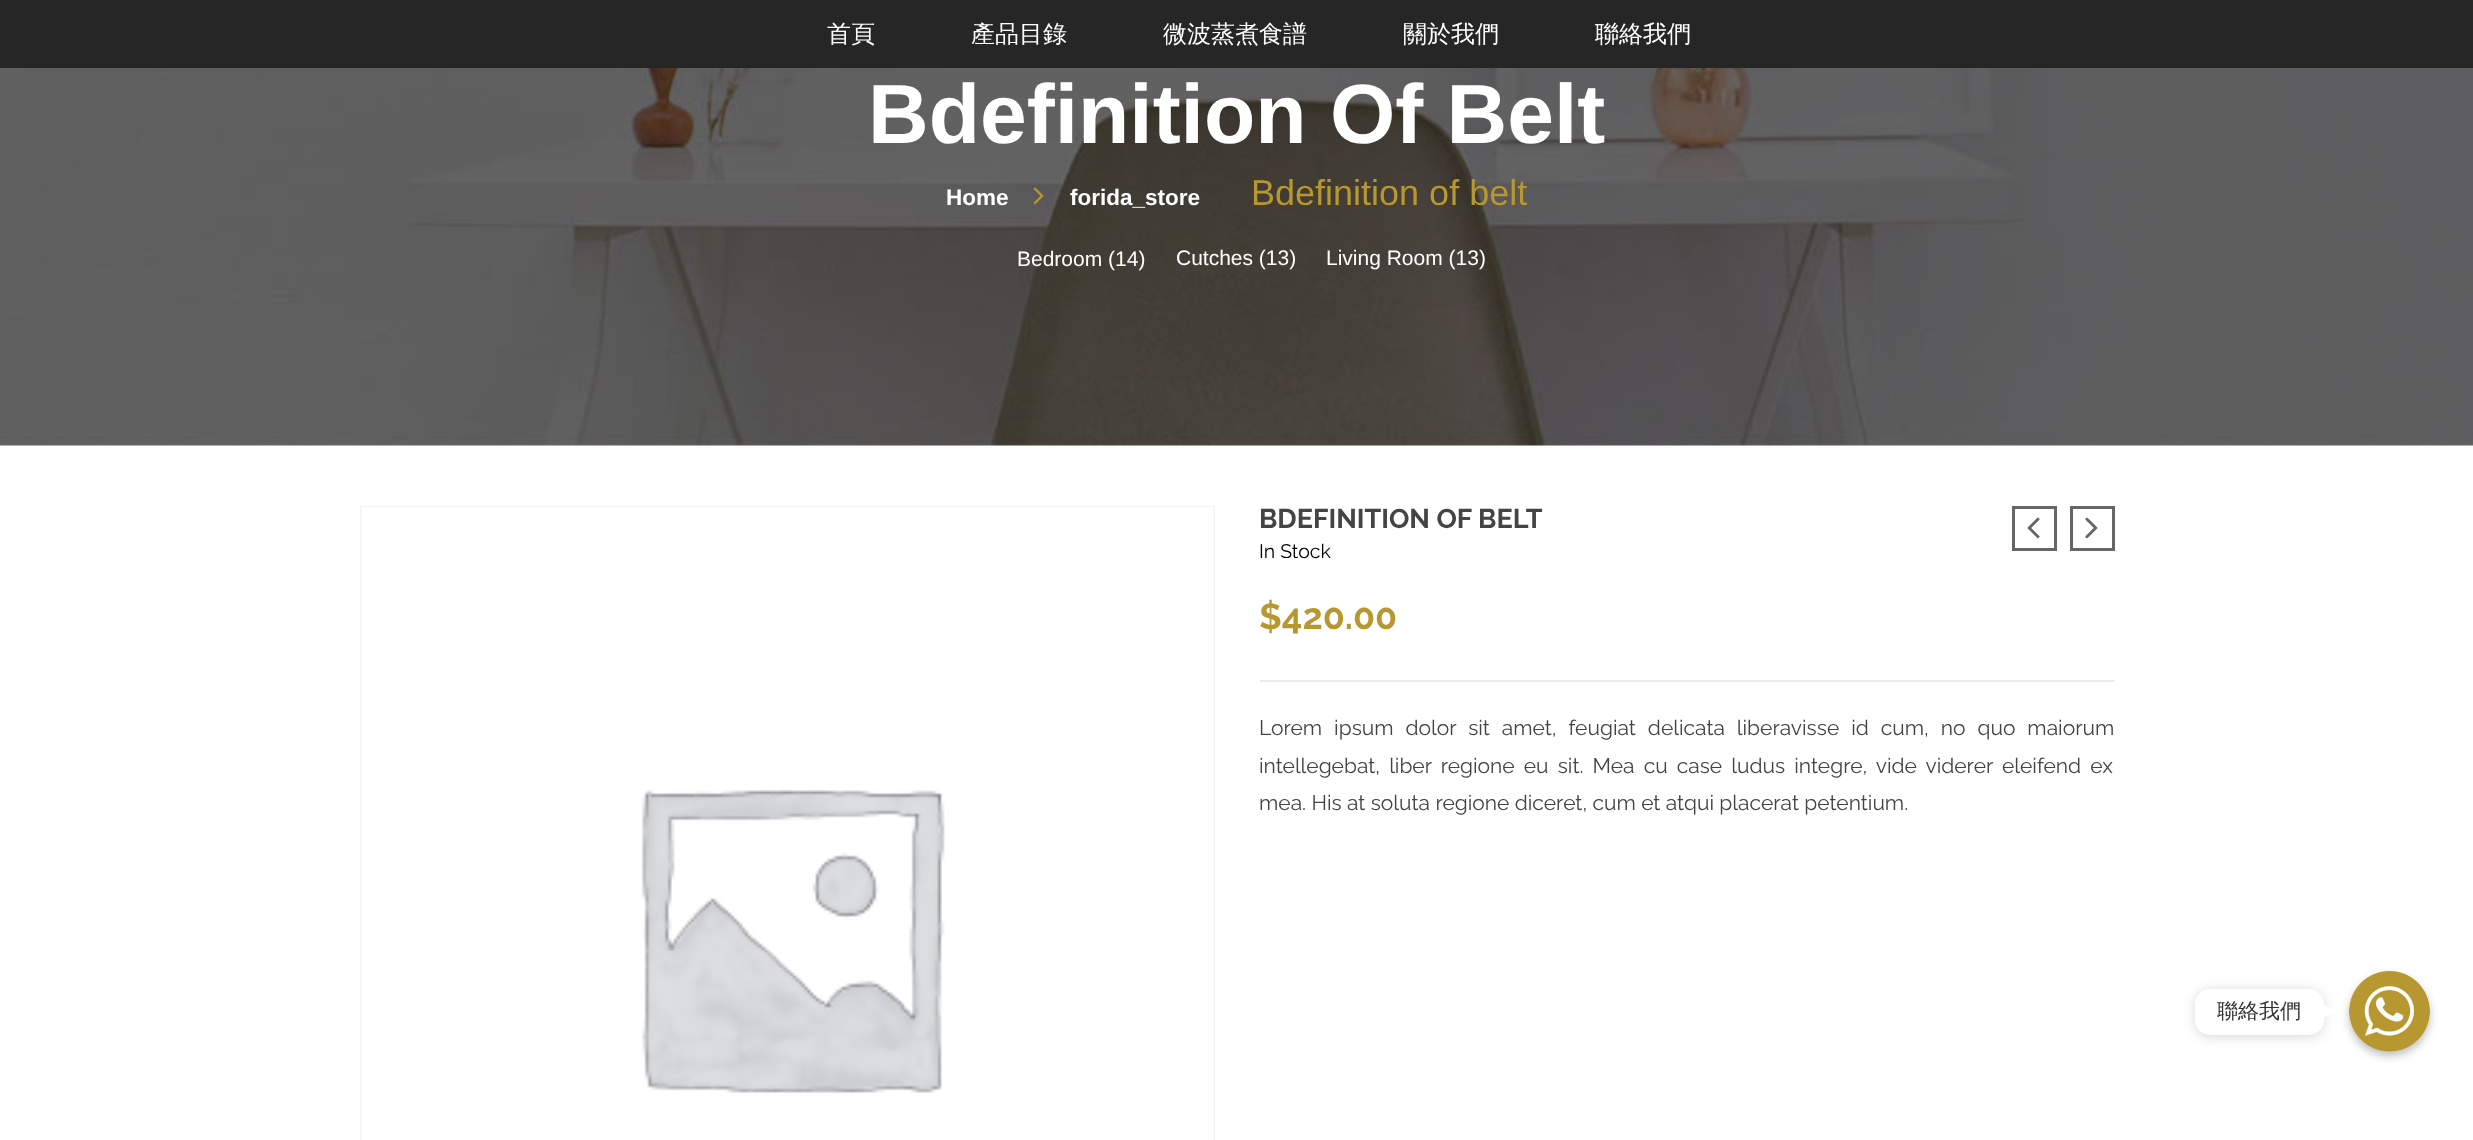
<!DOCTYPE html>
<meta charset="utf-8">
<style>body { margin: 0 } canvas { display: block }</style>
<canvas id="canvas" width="2473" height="1140"></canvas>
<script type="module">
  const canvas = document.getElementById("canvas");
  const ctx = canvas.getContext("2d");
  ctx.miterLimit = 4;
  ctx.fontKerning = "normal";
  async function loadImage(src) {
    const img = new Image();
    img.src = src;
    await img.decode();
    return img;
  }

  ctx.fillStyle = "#ffffff";
  ctx.fillRect(0, 0, 2473, 1140);
  ctx.fillStyle = "#262626";
  ctx.fillRect(0, 0, 2473, 68);
  ctx.font = "500 24px WenQuanYi Zen Hei";
  ctx.fillStyle = "#ffffff";
  ctx.fillText("首頁", 827, 42);
  ctx.fillText("產品目錄", 971, 42);
  ctx.fillText("微波蒸煮食譜", 1163, 42);
  ctx.fillText("關於我們", 1403, 42);
  ctx.fillText("聯絡我們", 1595, 42);
  ctx.drawImage(await loadImage("img1.png"), 0, 68, 2473, 378);
  ctx.font = "bold 84px Liberation Sans";
  ctx.fillText("Bdefinition Of Belt", 868, 143);
  ctx.font = "bold 22.5px Liberation Sans";
  ctx.fillText("Home", 946, 205);
  ctx.drawImage(await loadImage("img2.png"), 1033, 187, 11, 18);
  ctx.fillText("forida_store", 1070, 205);
  ctx.font = "36px Liberation Sans";
  ctx.fillStyle = "#b7972f";
  ctx.fillText("Bdefinition of belt", 1251, 205);
  ctx.font = "21px Liberation Sans";
  ctx.fillStyle = "#ffffff";
  ctx.fillText("Bedroom (14)", 1017, 266);
  ctx.fillText("Cutches (13)", 1176, 265);
  ctx.fillText("Living Room (13)", 1326, 265);
  ctx.strokeStyle = "#f2f2f2";
  ctx.lineWidth = 2;
  ctx.strokeRect(361, 507, 853, 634);
  ctx.drawImage(await loadImage("img3.png"), 361, 507, 853, 633);
  ctx.font = "bold 27px Raleway";
  ctx.fillStyle = "#444444";
  ctx.fillText("BDEFINITION OF BELT", 1259, 528);
  ctx.strokeStyle = "#666666";
  ctx.lineWidth = 3;
  ctx.strokeRect(2013.5, 507.5, 42, 42);
  ctx.drawImage(await loadImage("img4.png"), 2027, 517, 13, 22);
  ctx.strokeRect(2071.5, 507.5, 42, 42);
  ctx.drawImage(await loadImage("img5.png"), 2085, 517, 13, 22);
  ctx.font = "19.5px Raleway";
  ctx.fillStyle = "#000000";
  ctx.fillText("In Stock", 1259, 558);
  ctx.font = "bold 36px Raleway";
  ctx.fillStyle = "#b7972f";
  ctx.fillText("$420.00", 1259, 629);
  ctx.fillStyle = "#ebebeb";
  ctx.fillRect(1260, 680, 855, 2);
  ctx.wordSpacing = "6.6px";
  ctx.font = "21px Raleway";
  ctx.fillStyle = "#444444";
  ctx.fillText("Lorem ipsum dolor sit amet, feugiat delicata liberavisse id cum, no quo maiorum", 1259, 735);
  ctx.wordSpacing = "3.75px";
  ctx.fillText("intellegebat, liber regione eu sit. Mea cu case ludus integre, vide viderer eleifend ex", 1259, 773);
  ctx.wordSpacing = "0px";
  ctx.fillText("mea. His at soluta regione diceret, cum et atqui placerat petentium.", 1259, 810);
  ctx.fillStyle = "rgba(0, 0, 0, 0.15)";
  ctx.filter = "blur(6px)";
  ctx.beginPath();
  ctx.roundRect(2195, 990, 129, 47, 15);
  ctx.fill();
  ctx.filter = "none";
  ctx.fillStyle = "#ffffff";
  ctx.beginPath();
  ctx.roundRect(2195, 989, 129, 46, 15);
  ctx.fill();
  ctx.font = "500 21px WenQuanYi Zen Hei";
  ctx.fillStyle = "#333333";
  ctx.fillText("聯絡我們", 2217, 1018);
  ctx.fillStyle = "rgba(0, 0, 0, 0.25)";
  ctx.filter = "blur(4.5px)";
  ctx.beginPath();
  ctx.roundRect(2349, 975, 81, 81, 40.5);
  ctx.fill();
  ctx.filter = "none";
  ctx.fillStyle = "#ffffff";
  ctx.beginPath();
  ctx.moveTo(2322, 1018.5);
  ctx.lineTo(2322, 1003.5);
  ctx.lineTo(2337, 1011);
  ctx.closePath();
  ctx.fill();
  ctx.drawImage(await loadImage("img6.png"), 2349, 971, 81, 81);
</script>
